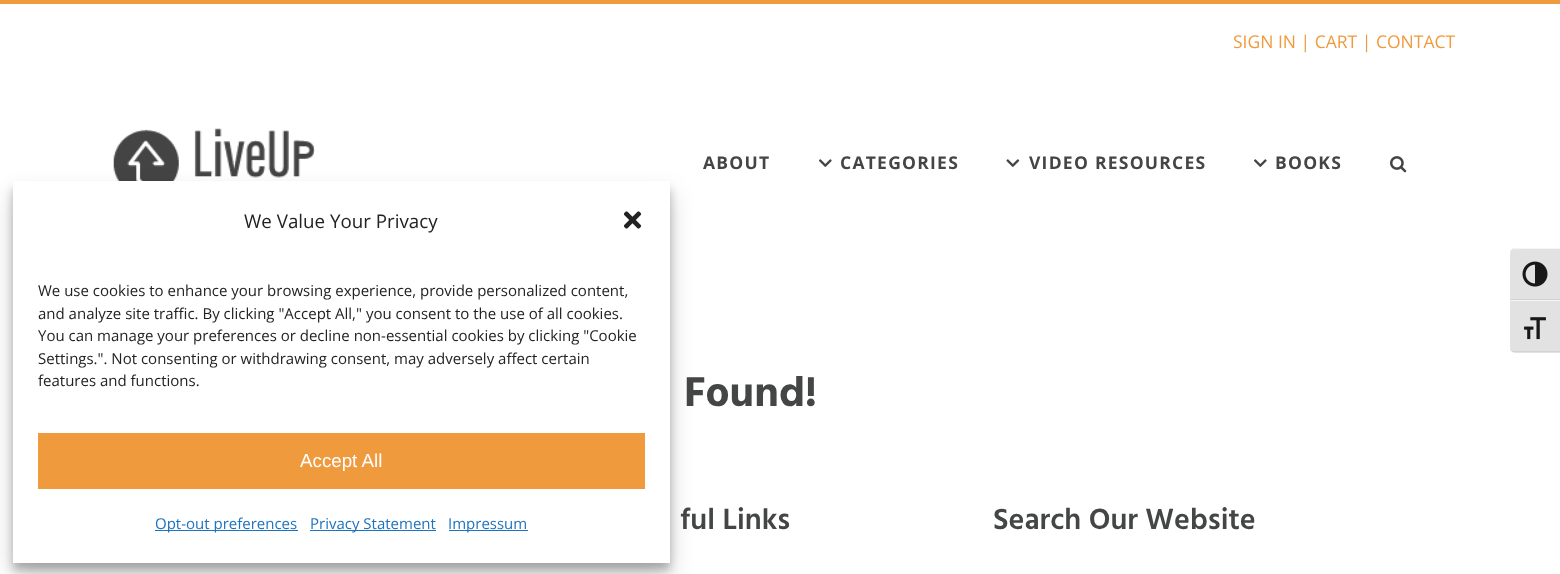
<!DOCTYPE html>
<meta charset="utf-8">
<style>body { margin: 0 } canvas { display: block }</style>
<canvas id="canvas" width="1560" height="574"></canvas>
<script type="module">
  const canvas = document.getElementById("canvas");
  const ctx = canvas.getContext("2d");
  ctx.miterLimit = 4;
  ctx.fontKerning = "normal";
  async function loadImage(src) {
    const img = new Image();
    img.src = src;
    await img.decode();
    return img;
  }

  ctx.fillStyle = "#ffffff";
  ctx.fillRect(0, 0, 1560, 574);
  ctx.drawImage(await loadImage("img2.png"), 113, 128, 202, 53);
  ctx.fillStyle = "rgba(0, 0, 0, 0.23)";
  ctx.filter = "blur(4px)";
  ctx.beginPath();
  ctx.rect(13, 189, 657, 381);
  ctx.fill();
  ctx.filter = "none";
  ctx.fillStyle = "rgba(0, 0, 0, 0.19)";
  ctx.filter = "blur(12.5px)";
  ctx.beginPath();
  ctx.rect(13, 194, 657, 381);
  ctx.fill();
  ctx.filter = "none";
  ctx.fillStyle = "#ffffff";
  ctx.fillRect(13, 181, 657, 382);
  ctx.font = "18.75px Open Sans";
  ctx.fillStyle = "#222222";
  ctx.fillText("We Value Your Privacy", 244, 228);
  ctx.drawImage(await loadImage("img1.png"), 623, 211, 19, 18);
  ctx.font = "15px Open Sans";
  ctx.fillText("We use cookies to enhance your browsing experience, provide personalized content,", 38, 296);
  ctx.fillText("and analyze site traffic. By clicking \"Accept All,\" you consent to the use of all cookies.", 38, 319);
  ctx.fillText("You can manage your preferences or decline non-essential cookies by clicking \"Cookie", 38, 341);
  ctx.fillText("Settings.\". Not consenting or withdrawing consent, may adversely affect certain", 38, 364);
  ctx.fillText("features and functions.", 38, 386);
  ctx.fillStyle = "#f09a3e";
  ctx.fillRect(38, 433, 607, 56);
  ctx.font = "18.75px Liberation Sans";
  ctx.fillStyle = "#ffffff";
  ctx.fillText("Accept All", 300, 467);
  ctx.fillStyle = "#1e73be";
  ctx.fillRect(155, 530, 143, 1);
  ctx.font = "15px Open Sans";
  ctx.fillText("Opt-out preferences", 155, 529);
  ctx.fillRect(310, 530, 126, 1);
  ctx.fillText("Privacy Statement", 310, 529);
  ctx.fillRect(449, 530, 79, 1);
  ctx.fillText("Impressum", 448, 529);
  ctx.fillStyle = "#f09a3e";
  ctx.fillRect(0, 0, 1560, 4);
  ctx.font = "17.5px Open Sans";
  ctx.fillText("SIGN IN | CART | CONTACT", 1233, 48);
  ctx.letterSpacing = "1.25px";
  ctx.font = "bold 17.5px Open Sans";
  ctx.fillStyle = "#444545";
  ctx.fillText("ABOUT", 703, 169);
  ctx.drawImage(await loadImage("img3.png"), 819, 159, 13, 8);
  ctx.fillText("CATEGORIES", 840, 169);
  ctx.drawImage(await loadImage("img4.png"), 1006, 159, 14, 8);
  ctx.fillText("VIDEO RESOURCES", 1029, 169);
  ctx.drawImage(await loadImage("img3.png"), 1254, 159, 13, 8);
  ctx.fillText("BOOKS", 1275, 169);
  ctx.drawImage(await loadImage("img5.png"), 1390, 156, 17, 17);
  ctx.letterSpacing = "0px";
  ctx.font = "bold 42.5px Hind Vadodara";
  ctx.fillText("Found!", 684, 406);
  ctx.font = "600 30px Hind Vadodara";
  ctx.fillText("ful Links", 680, 529);
  ctx.fillText("Search Our Website", 993, 529);
  ctx.fillStyle = "#e2e2e2";
  ctx.beginPath();
  ctx.roundRect(1510, 248, 50, 52, [5, 0, 0, 0]);
  ctx.fill();
  ctx.fillStyle = "#f5f5f5";
  ctx.beginPath();
  ctx.moveTo(1515, 248);
  ctx.bezierCurveTo(1512, 248, 1510, 250, 1510, 252);
  ctx.bezierCurveTo(1510, 250, 1512, 249, 1515, 249);
  ctx.lineTo(1560, 249);
  ctx.lineTo(1560, 248);
  ctx.closePath();
  ctx.fill();
  ctx.fillStyle = "#d2d2d2";
  ctx.fillRect(1510, 299, 50, 1);
  ctx.drawImage(await loadImage("img6.png"), 1522, 261, 26, 26);
  ctx.fillStyle = "#e2e2e2";
  ctx.beginPath();
  ctx.roundRect(1510, 300, 50, 53, [0, 0, 0, 5]);
  ctx.fill();
  ctx.fillStyle = "#f5f5f5";
  ctx.fillRect(1510, 300, 50, 1);
  ctx.fillStyle = "#d2d2d2";
  ctx.beginPath();
  ctx.moveTo(1560, 352);
  ctx.lineTo(1560, 351);
  ctx.lineTo(1515, 351);
  ctx.bezierCurveTo(1512, 351, 1510, 350, 1510, 348);
  ctx.bezierCurveTo(1510, 350, 1512, 352, 1515, 352);
  ctx.closePath();
  ctx.fill();
  ctx.drawImage(await loadImage("img7.png"), 1524, 317, 22, 23);
</script>
